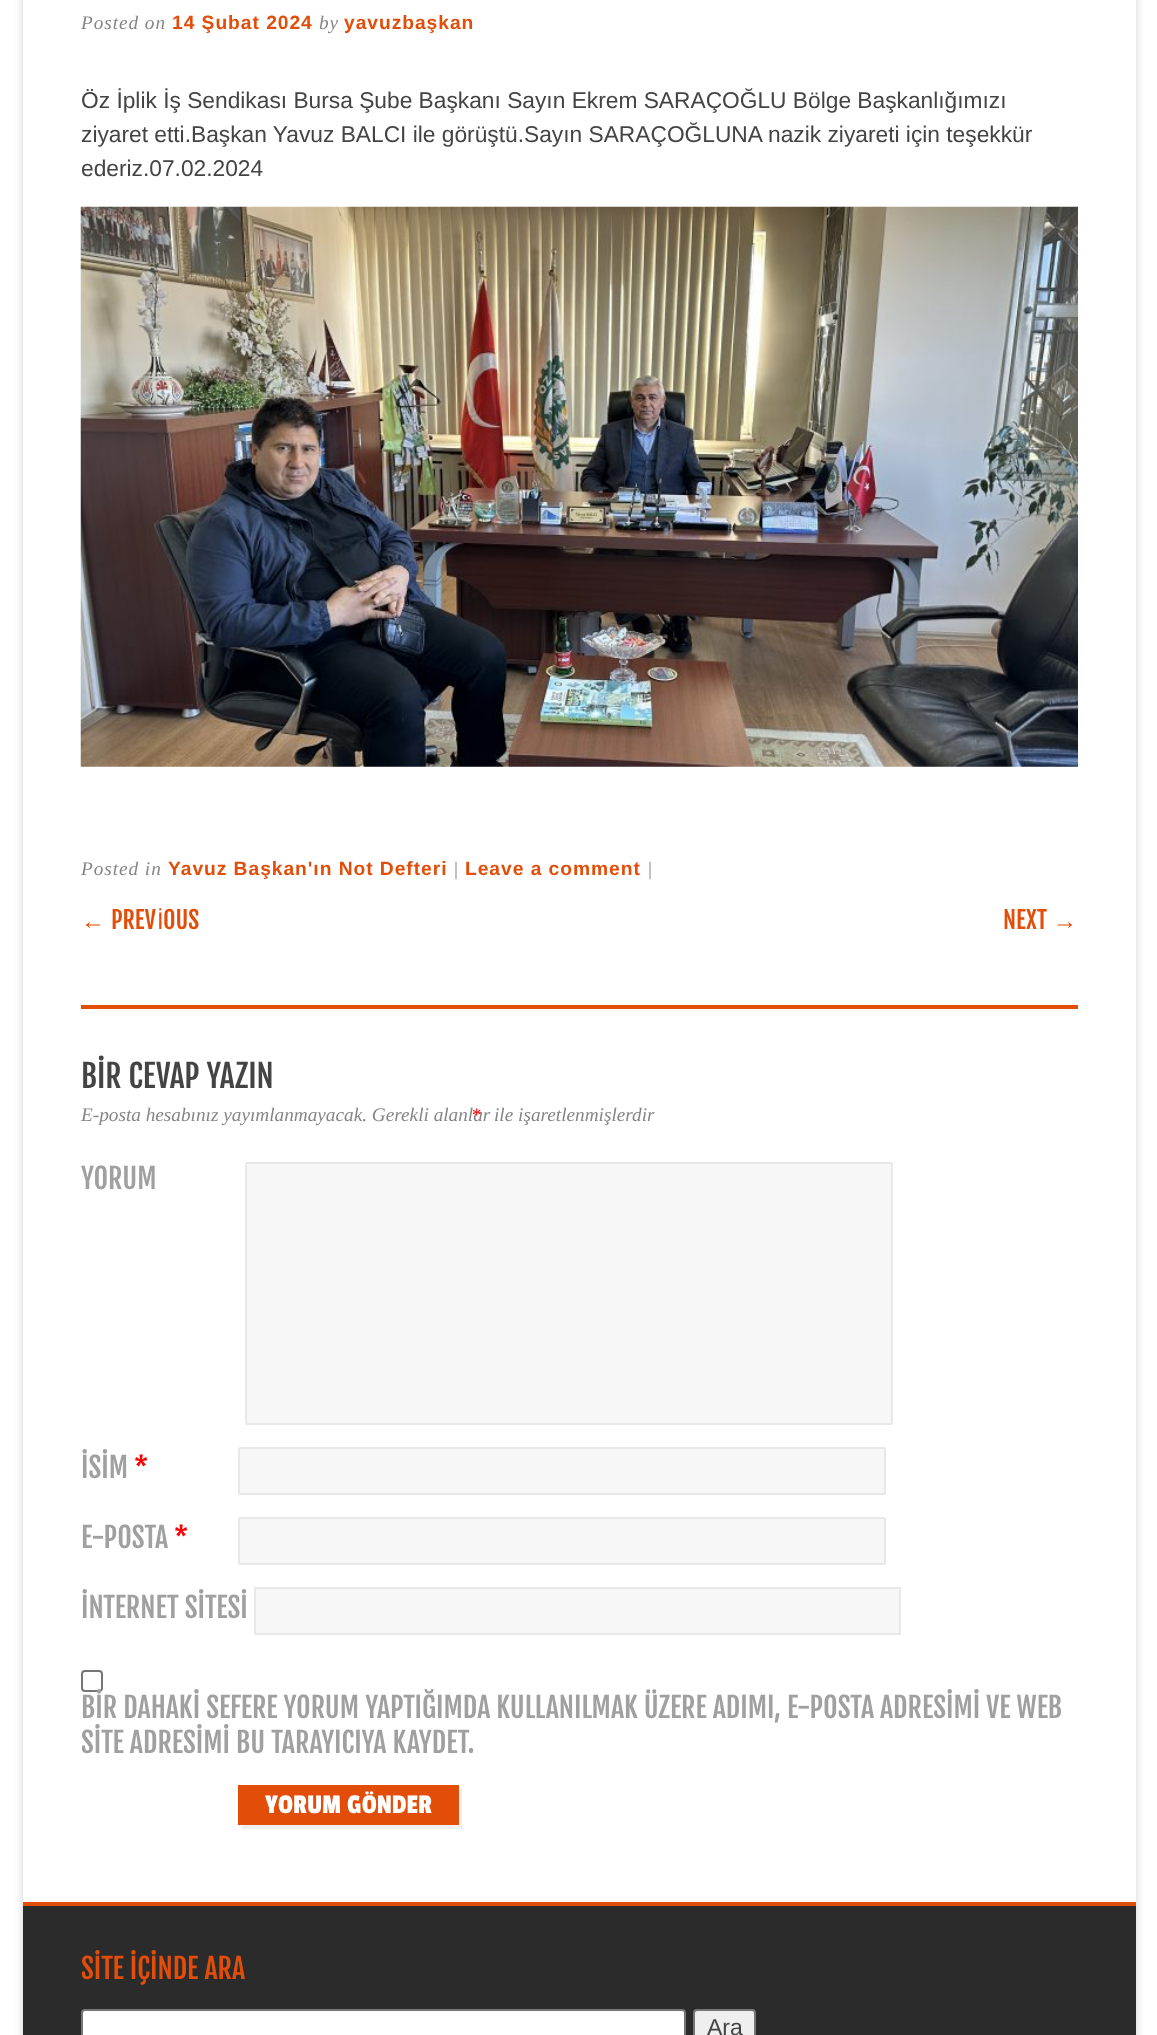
<!DOCTYPE html>
<meta charset="utf-8">
<style>body { margin: 0 } canvas { display: block }</style>
<canvas id="canvas" width="1157" height="2035"></canvas>
<script type="module">
  const canvas = document.getElementById("canvas");
  const ctx = canvas.getContext("2d");
  ctx.miterLimit = 4;
  ctx.fontKerning = "normal";
  async function loadImage(src) {
    const img = new Image();
    img.src = src;
    await img.decode();
    return img;
  }

  ctx.fillStyle = "#ffffff";
  ctx.fillRect(0, 0, 1157, 2035);
  ctx.drawImage(await loadImage("img1.png"), 0, 0, 1157, 2035);
  ctx.fillStyle = "#d0d0d0";
  ctx.filter = "blur(4.5px)";
  ctx.beginPath();
  ctx.rect(23, -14, 1113, 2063);
  ctx.fill();
  ctx.filter = "none";
  ctx.fillStyle = "#ffffff";
  ctx.fillRect(23, 0, 1113, 1902);
  ctx.letterSpacing = "0.95px";
  ctx.font = "italic 19.25px Liberation Serif";
  ctx.fillStyle = "#858585";
  ctx.fillText("Posted on", 81, 29);
  ctx.font = "bold 19.25px Liberation Sans";
  ctx.fillStyle = "#e24e09";
  ctx.fillText("14 Şubat 2024", 172, 29);
  ctx.font = "italic 19.25px Liberation Serif";
  ctx.fillStyle = "#858585";
  ctx.fillText("by", 319, 29);
  ctx.font = "bold 19.25px Liberation Sans";
  ctx.fillStyle = "#e24e09";
  ctx.fillText("yavuzbaşkan", 344, 29);
  ctx.letterSpacing = "0px";
  ctx.font = "22.75px Liberation Sans";
  ctx.fillStyle = "#444444";
  ctx.fillText("Öz İplik İş Sendikası Bursa Şube Başkanı Sayın Ekrem SARAÇOĞLU Bölge Başkanlığımızı", 81, 108);
  ctx.fillText("ziyaret etti.Başkan Yavuz BALCI ile görüştü.Sayın SARAÇOĞLUNA nazik ziyareti için teşekkür", 81, 142);
  ctx.fillText("ederiz.07.02.2024", 81, 176);
  ctx.drawImage(await loadImage("img2.png"), 80, 206, 998, 561);
  ctx.letterSpacing = "0.95px";
  ctx.font = "italic 19.25px Liberation Serif";
  ctx.fillStyle = "#858585";
  ctx.fillText("Posted in", 81, 875);
  ctx.font = "bold 19.25px Liberation Sans";
  ctx.fillStyle = "#e24e09";
  ctx.fillText("Yavuz Başkan'ın Not Defteri", 168, 875);
  ctx.font = "italic 19.25px Liberation Serif";
  ctx.fillStyle = "#858585";
  ctx.fillText("|", 453, 875);
  ctx.font = "bold 19.25px Liberation Sans";
  ctx.fillStyle = "#e24e09";
  ctx.fillText("Leave a comment", 465, 875);
  ctx.font = "italic 19.25px Liberation Serif";
  ctx.fillStyle = "#858585";
  ctx.fillText("|", 647, 875);
  ctx.letterSpacing = "0px";
  ctx.font = "24px Liberation Sans";
  ctx.fillStyle = "#e24e09";
  ctx.fillText("←", 81, 929);
  ctx.font = "24px Fjalla One";
  ctx.fillText("PREV", 111, 929);
  ctx.font = "24px Liberation Sans";
  ctx.fillText("İ", 157, 929);
  ctx.font = "24px Fjalla One";
  ctx.fillText("OUS", 163, 929);
  ctx.fillText("NEXT", 1003, 929);
  ctx.font = "24px Liberation Sans";
  ctx.fillText("→", 1053, 929);
  ctx.fillRect(81, 1005, 997, 4);
  ctx.font = "31.5px Fjalla One";
  ctx.fillStyle = "#444444";
  ctx.fillText("BİR CEVAP YAZIN", 81, 1088);
  ctx.font = "italic 19.25px Liberation Serif";
  ctx.fillStyle = "#858585";
  ctx.fillText("E-posta hesabınız yayımlanmayacak. Gerekli alanlar", 81, 1121);
  ctx.fillText("ile işaretlenmişlerdir", 494, 1121);
  ctx.fillStyle = "#ff0000";
  ctx.fillText("*", 471, 1121);
  ctx.font = "28px Fjalla One";
  ctx.fillStyle = "#a0a0a0";
  ctx.fillText("YORUM", 81, 1189);
  ctx.fillStyle = "#f7f7f7";
  ctx.beginPath();
  ctx.roundRect(246, 1163, 646, 261, 1);
  ctx.fill();
  ctx.strokeStyle = "#e8e8e8";
  ctx.lineWidth = 2;
  ctx.stroke();
  ctx.fillStyle = "#a0a0a0";
  ctx.fillText("İSİM", 81, 1478);
  ctx.fillStyle = "#ff0000";
  ctx.fillText("*", 134, 1478);
  ctx.fillStyle = "#f7f7f7";
  ctx.beginPath();
  ctx.roundRect(239, 1448, 646, 46, 1);
  ctx.fill();
  ctx.stroke();
  ctx.fillStyle = "#a0a0a0";
  ctx.fillText("E-POSTA", 81, 1548);
  ctx.fillStyle = "#ff0000";
  ctx.fillText("*", 174, 1548);
  ctx.fillStyle = "#f7f7f7";
  ctx.beginPath();
  ctx.roundRect(239, 1518, 646, 46, 1);
  ctx.fill();
  ctx.stroke();
  ctx.fillStyle = "#a0a0a0";
  ctx.fillText("İNTERNET SİTESİ", 81, 1618);
  ctx.fillStyle = "#f7f7f7";
  ctx.beginPath();
  ctx.rect(255, 1588, 645, 46);
  ctx.fill();
  ctx.stroke();
  ctx.beginPath();
  ctx.roundRect(82, 1671, 20, 20, 3);
  ctx.strokeStyle = "#767676";
  ctx.stroke();
  ctx.fillStyle = "#a0a0a0";
  ctx.fillText("BİR DAHAKİ SEFERE YORUM YAPTIĞIMDA KULLANILMAK ÜZERE ADIMI, E-POSTA ADRESİMİ VE WEB", 81, 1718);
  ctx.fillText("SİTE ADRESİMİ BU TARAYICIYA KAYDET.", 81, 1753);
  ctx.fillStyle = "#f0f0f0";
  ctx.beginPath();
  ctx.moveTo(242, 1825);
  ctx.lineTo(242, 1829);
  ctx.lineTo(462, 1829);
  ctx.lineTo(462, 1789);
  ctx.lineTo(458, 1789);
  ctx.lineTo(458, 1825);
  ctx.closePath();
  ctx.fill();
  ctx.fillStyle = "#e24e09";
  ctx.fillRect(238, 1785, 221, 40);
  ctx.font = "28px Passion One";
  ctx.fillStyle = "#ffffff";
  ctx.fillText("YORUM GÖNDER", 265, 1813);
  ctx.fillStyle = "#2b2b2b";
  ctx.fillRect(23, 1906, 1113, 129);
  ctx.fillStyle = "#e24e09";
  ctx.fillRect(23, 1902, 1113, 4);
  ctx.font = "28px Fjalla One";
  ctx.fillText("SİTE İÇİNDE ARA", 81, 1979);
  ctx.fillStyle = "#ffffff";
  ctx.beginPath();
  ctx.roundRect(82, 2010, 603, 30, 3);
  ctx.fill();
  ctx.stroke();
  ctx.fillStyle = "#efefef";
  ctx.beginPath();
  ctx.roundRect(694, 2010, 61, 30, 3);
  ctx.fill();
  ctx.stroke();
  ctx.font = "23px Liberation Sans";
  ctx.fillStyle = "#444444";
  ctx.fillText("Ara", 707, 2035);
</script>
